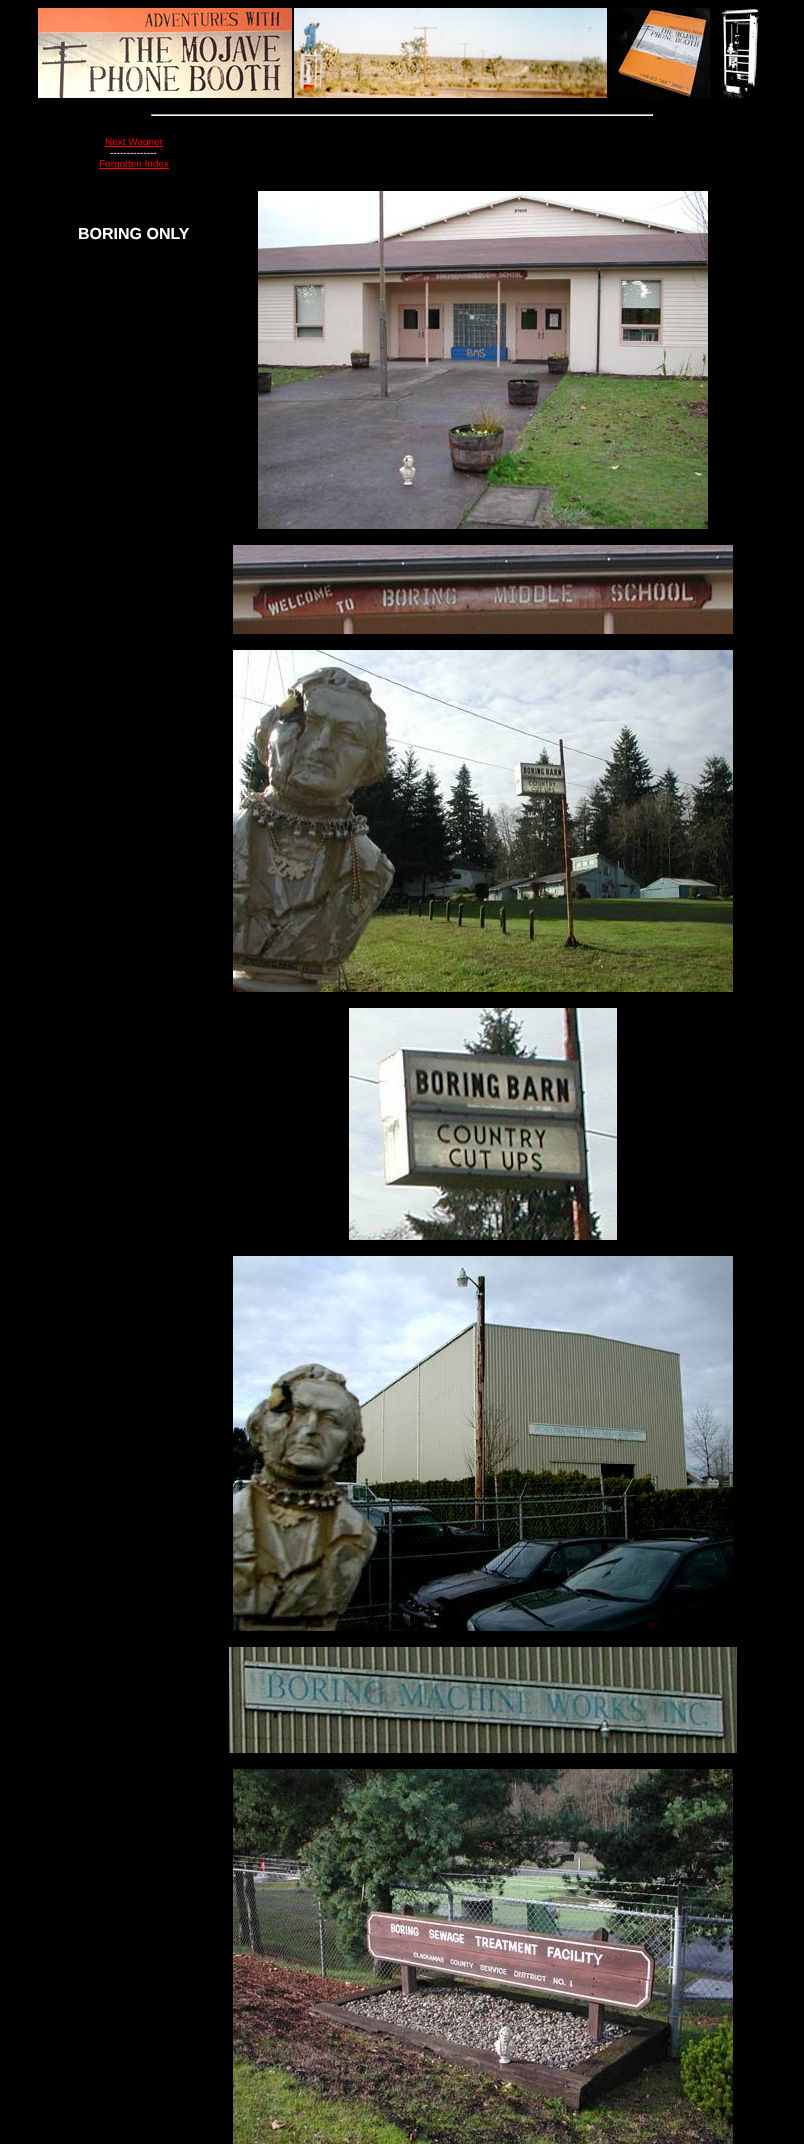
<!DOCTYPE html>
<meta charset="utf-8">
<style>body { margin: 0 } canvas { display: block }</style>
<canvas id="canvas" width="804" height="2144"></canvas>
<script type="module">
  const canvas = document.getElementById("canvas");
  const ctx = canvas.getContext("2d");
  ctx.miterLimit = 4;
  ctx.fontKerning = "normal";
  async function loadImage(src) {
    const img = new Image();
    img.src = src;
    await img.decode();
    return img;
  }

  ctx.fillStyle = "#000000";
  ctx.fillRect(0, 0, 804, 2144);
  ctx.drawImage(await loadImage("img1.png"), 38, 8, 728, 90);
  ctx.fillStyle = "#9f9f9f";
  ctx.fillRect(151, 114, 502, 1);
  ctx.fillStyle = "#eeeeee";
  ctx.fillRect(652, 114, 1, 2);
  ctx.fillRect(151, 115, 502, 1);
  ctx.fillStyle = "#9f9f9f";
  ctx.fillRect(151, 114, 1, 2);
  ctx.fillStyle = "#ff0000";
  ctx.fillRect(105, 146, 58, 1);
  ctx.font = "10px Liberation Sans";
  ctx.fillText("Next Wagner", 105, 145);
  ctx.fillStyle = "#ffffff";
  ctx.fillText("--------------", 110, 156);
  ctx.fillStyle = "#ff0000";
  ctx.fillRect(99, 168, 70, 1);
  ctx.fillText("Forgotten Index", 99, 167);
  ctx.font = "bold 16px Liberation Sans";
  ctx.fillStyle = "#ffffff";
  ctx.fillText("BORING ONLY", 78, 239);
  ctx.drawImage(await loadImage("img2.png"), 258, 191, 450, 338);
  ctx.drawImage(await loadImage("img3.png"), 233, 545, 500, 89);
  ctx.drawImage(await loadImage("img4.png"), 233, 650, 500, 342);
  ctx.drawImage(await loadImage("img5.png"), 349, 1008, 268, 232);
  ctx.drawImage(await loadImage("img6.png"), 233, 1256, 500, 375);
  ctx.drawImage(await loadImage("img7.png"), 229, 1647, 508, 106);
  ctx.drawImage(await loadImage("img8.png"), 233, 1769, 500, 375);
</script>
